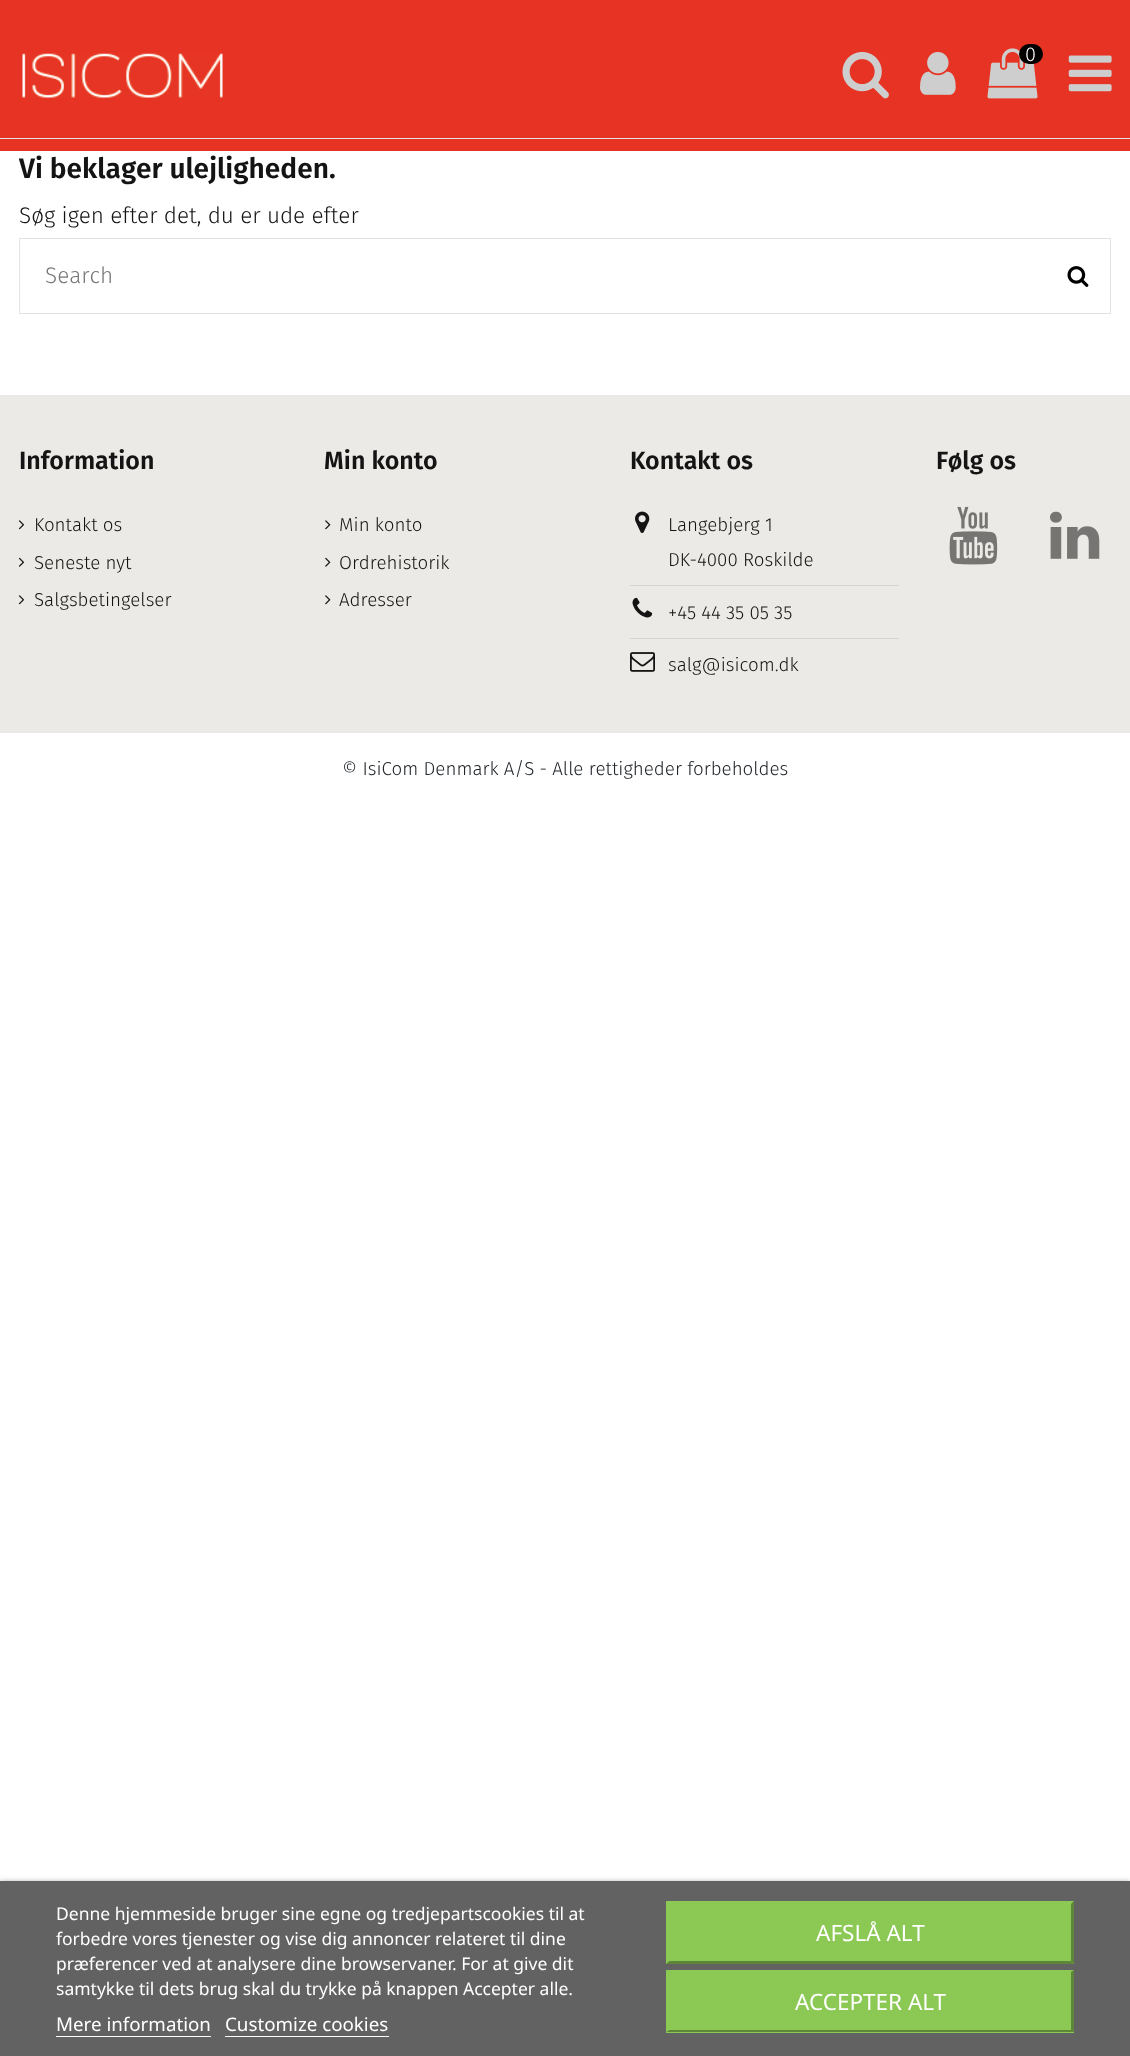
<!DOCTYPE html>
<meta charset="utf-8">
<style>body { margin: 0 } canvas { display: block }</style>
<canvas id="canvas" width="1130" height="2056"></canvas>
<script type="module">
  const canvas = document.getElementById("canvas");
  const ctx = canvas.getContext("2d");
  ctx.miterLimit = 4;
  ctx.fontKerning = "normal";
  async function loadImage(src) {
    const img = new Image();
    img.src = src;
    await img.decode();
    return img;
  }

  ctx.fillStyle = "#ffffff";
  ctx.fillRect(0, 0, 1130, 2056);
  ctx.fillStyle = "#e63323";
  ctx.fillRect(0, 0, 1130, 151);
  ctx.fillStyle = "#e3e3e3";
  ctx.fillRect(0, 138, 1130, 1);
  ctx.drawImage(await loadImage("img1.png"), 22, 53, 201, 45);
  ctx.drawImage(await loadImage("img2.png"), 842, 52, 47, 47);
  ctx.drawImage(await loadImage("img3.png"), 920, 52, 36, 43);
  ctx.drawImage(await loadImage("img4.png"), 987, 48, 51, 51);
  ctx.fillStyle = "#000000";
  ctx.beginPath();
  ctx.roundRect(1019, 44, 24, 20, 10);
  ctx.fill();
  ctx.font = "300 20px Fira Sans";
  ctx.fillStyle = "#ffffff";
  ctx.fillText("0", 1025, 61);
  ctx.drawImage(await loadImage("img5.png"), 1068, 55, 44, 37);
  ctx.font = "600 28.1px Fira Sans";
  ctx.fillStyle = "#141414";
  ctx.fillText("Vi beklager ulejligheden.", 19, 178);
  ctx.font = "300 22.5px Fira Sans";
  ctx.fillText("Søg igen efter det, du er ude efter", 19, 223);
  ctx.strokeStyle = "#e3e3e3";
  ctx.strokeRect(19.5, 238.5, 1091, 75);
  ctx.fillStyle = "#777777";
  ctx.fillText("Search", 45, 283);
  ctx.drawImage(await loadImage("img6.png"), 1067, 266, 22, 21);
  ctx.fillStyle = "#eceae6";
  ctx.fillRect(0, 395, 1130, 338);
  ctx.font = "600 25px Fira Sans";
  ctx.fillStyle = "#141414";
  ctx.fillText("Information", 19, 469);
  ctx.drawImage(await loadImage("img7.png"), 18, 520, 7, 10);
  ctx.font = "300 18.75px Fira Sans";
  ctx.fillText("Kontakt os", 34, 531);
  ctx.drawImage(await loadImage("img8.png"), 18, 557, 7, 10);
  ctx.fillText("Seneste nyt", 34, 569);
  ctx.drawImage(await loadImage("img7.png"), 18, 595, 7, 10);
  ctx.fillText("Salgsbetingelser", 34, 606);
  ctx.font = "600 25px Fira Sans";
  ctx.fillText("Min konto", 324, 469);
  ctx.drawImage(await loadImage("img9.png"), 325, 520, 6, 10);
  ctx.font = "300 18.75px Fira Sans";
  ctx.fillText("Min konto", 339, 531);
  ctx.drawImage(await loadImage("img10.png"), 325, 557, 6, 10);
  ctx.fillText("Ordrehistorik", 339, 569);
  ctx.drawImage(await loadImage("img9.png"), 325, 595, 6, 10);
  ctx.fillText("Adresser", 339, 606);
  ctx.font = "600 25px Fira Sans";
  ctx.fillText("Kontakt os", 630, 469);
  ctx.drawImage(await loadImage("img11.png"), 635, 511, 15, 22);
  ctx.font = "300 18.75px Fira Sans";
  ctx.fillText("Langebjerg 1", 668, 531);
  ctx.fillText("DK-4000 Roskilde", 668, 566);
  ctx.fillStyle = "#d5d5d5";
  ctx.fillRect(630, 585, 269, 1);
  ctx.drawImage(await loadImage("img12.png"), 632, 597, 21, 21);
  ctx.fillStyle = "#141414";
  ctx.fillText("+45 44 35 05 35", 668, 619);
  ctx.fillStyle = "#d5d5d5";
  ctx.fillRect(630, 638, 269, 1);
  ctx.drawImage(await loadImage("img13.png"), 630, 652, 25, 20);
  ctx.fillStyle = "#141414";
  ctx.fillText("salg@isicom.dk", 668, 671);
  ctx.font = "600 25px Fira Sans";
  ctx.fillText("Følg os", 936, 469);
  ctx.drawImage(await loadImage("img14.png"), 949, 506, 49, 59);
  ctx.drawImage(await loadImage("img15.png"), 1050, 511, 50, 48);
  ctx.save();
  ctx.beginPath();
  ctx.moveTo(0, 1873);
  ctx.lineTo(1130, 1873);
  ctx.lineTo(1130, 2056);
  ctx.lineTo(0, 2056);
  ctx.closePath();
  ctx.moveTo(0, 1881);
  ctx.lineTo(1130, 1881);
  ctx.lineTo(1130, 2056);
  ctx.lineTo(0, 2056);
  ctx.closePath();
  ctx.clip("evenodd");
  ctx.fillStyle = "#707070";
  ctx.filter = "blur(3px)";
  ctx.beginPath();
  ctx.rect(0, 1883, 1130, 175);
  ctx.fill();
  ctx.filter = "none";
  ctx.restore();
  ctx.fillStyle = "rgba(59, 59, 59, 0.8)";
  ctx.fillRect(0, 1881, 1130, 175);
  ctx.font = "17.5px Noto Sans";
  ctx.fillStyle = "#ffffff";
  ctx.fillText("Denne hjemmeside bruger sine egne og tredjepartscookies til at", 56, 1920);
  ctx.fillText("forbedre vores tjenester og vise dig annoncer relateret til dine", 56, 1945);
  ctx.fillText("præferencer ved at analysere dine browservaner. For at give dit", 56, 1970);
  ctx.fillText("samtykke til dets brug skal du trykke på knappen Accepter alle.", 56, 1995);
  ctx.font = "18.75px Noto Sans";
  ctx.fillText("Mere information", 56, 2031);
  ctx.fillRect(56, 2036, 155, 1);
  ctx.fillText("Customize cookies", 225, 2031);
  ctx.fillRect(225, 2036, 164, 1);
  ctx.fillStyle = "#8bc954";
  ctx.fillRect(666, 1901, 408, 63);
  ctx.fillStyle = "#5d8638";
  ctx.beginPath();
  ctx.moveTo(1074, 1901);
  ctx.lineTo(1074, 1964);
  ctx.lineTo(1071, 1961);
  ctx.lineTo(1071, 1904);
  ctx.closePath();
  ctx.fill();
  ctx.beginPath();
  ctx.moveTo(1074, 1964);
  ctx.lineTo(666, 1964);
  ctx.lineTo(669, 1961);
  ctx.lineTo(1071, 1961);
  ctx.closePath();
  ctx.fill();
  ctx.fillStyle = "#8bc954";
  ctx.beginPath();
  ctx.moveTo(666, 1964);
  ctx.lineTo(666, 1901);
  ctx.lineTo(669, 1904);
  ctx.lineTo(669, 1961);
  ctx.closePath();
  ctx.fill();
  ctx.font = "22.5px Noto Sans";
  ctx.fillStyle = "#ffffff";
  ctx.fillText("AFSLÅ ALT", 816, 1941);
  ctx.fillStyle = "#8bc954";
  ctx.fillRect(666, 1970, 408, 63);
  ctx.fillStyle = "#5d8638";
  ctx.beginPath();
  ctx.moveTo(1074, 1970);
  ctx.lineTo(1074, 2032);
  ctx.lineTo(1071, 2030);
  ctx.lineTo(1071, 1972);
  ctx.closePath();
  ctx.fill();
  ctx.beginPath();
  ctx.moveTo(1074, 2032);
  ctx.lineTo(666, 2032);
  ctx.lineTo(669, 2030);
  ctx.lineTo(1071, 2030);
  ctx.closePath();
  ctx.fill();
  ctx.fillStyle = "#8bc954";
  ctx.beginPath();
  ctx.moveTo(666, 2032);
  ctx.lineTo(666, 1970);
  ctx.lineTo(669, 1972);
  ctx.lineTo(669, 2030);
  ctx.closePath();
  ctx.fill();
  ctx.fillStyle = "#ffffff";
  ctx.fillText("ACCEPTER ALT", 795, 2010);
  ctx.font = "300 18.75px Fira Sans";
  ctx.fillStyle = "#212529";
  ctx.fillText("© IsiCom Denmark A/S - Alle rettigheder forbeholdes", 342, 775);
</script>
